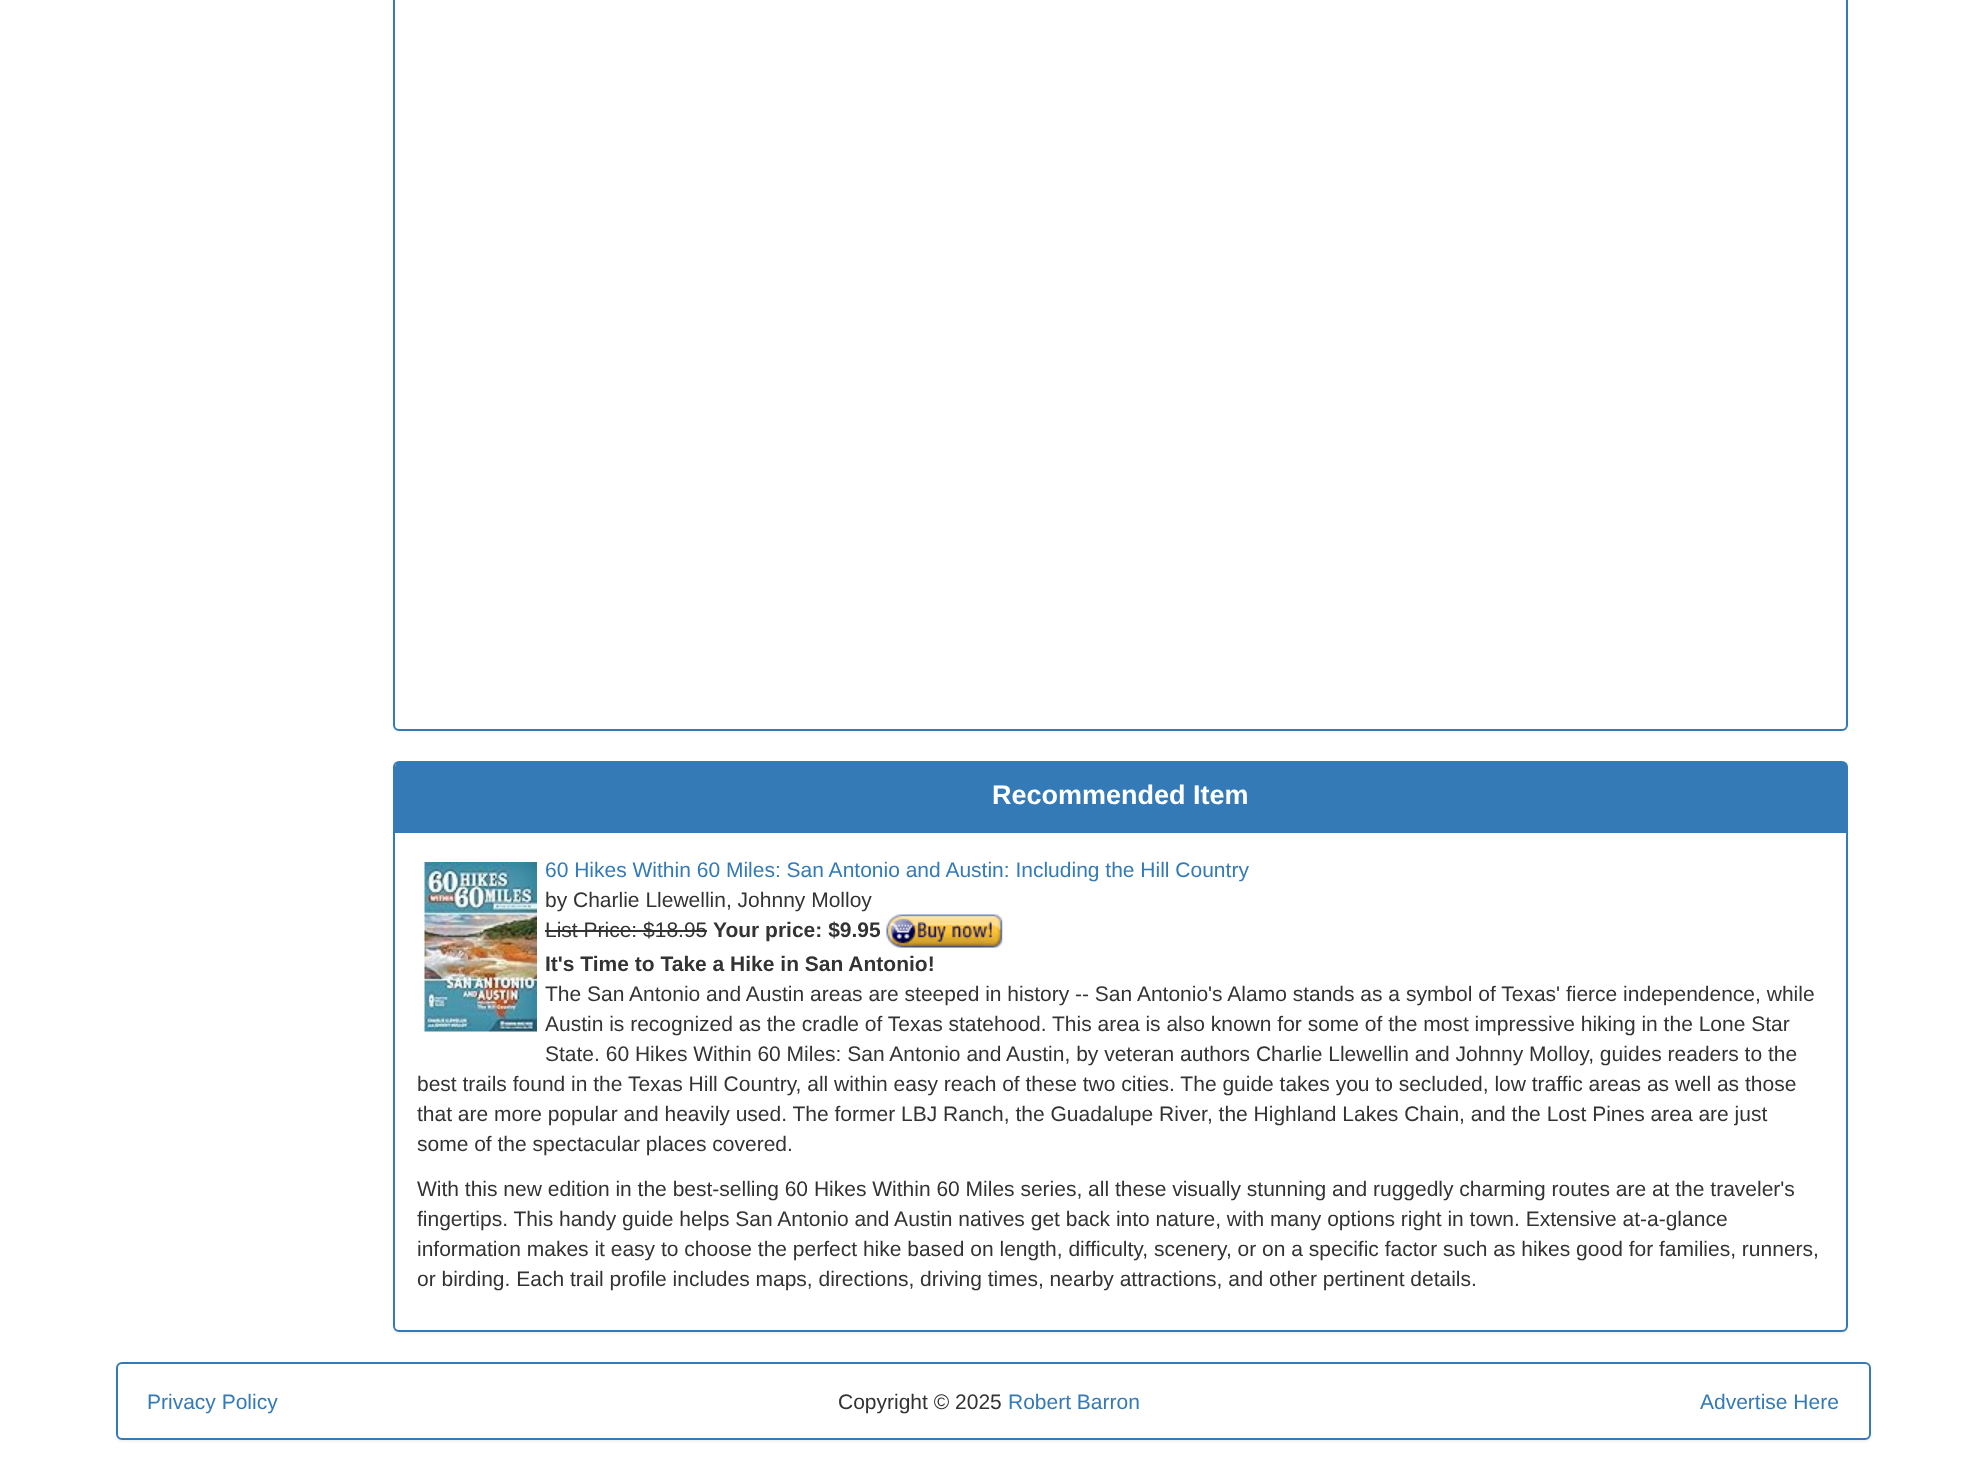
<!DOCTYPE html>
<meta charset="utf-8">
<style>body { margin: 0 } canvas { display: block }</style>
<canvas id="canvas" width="1985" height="1470"></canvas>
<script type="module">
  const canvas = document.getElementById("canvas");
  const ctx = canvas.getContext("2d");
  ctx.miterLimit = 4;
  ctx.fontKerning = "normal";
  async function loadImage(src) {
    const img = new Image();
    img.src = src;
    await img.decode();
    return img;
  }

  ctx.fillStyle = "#ffffff";
  ctx.fillRect(0, 0, 1985, 1470);
  ctx.fillStyle = "rgba(0, 0, 0, 0.05)";
  ctx.filter = "blur(1px)";
  ctx.beginPath();
  ctx.roundRect(393, -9, 1455, 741, 6);
  ctx.fill();
  ctx.filter = "none";
  ctx.fillStyle = "#ffffff";
  ctx.beginPath();
  ctx.roundRect(394, -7, 1453, 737, 5);
  ctx.fill();
  ctx.strokeStyle = "#337ab7";
  ctx.lineWidth = 2;
  ctx.stroke();
  ctx.fillStyle = "rgba(0, 0, 0, 0.05)";
  ctx.filter = "blur(1px)";
  ctx.beginPath();
  ctx.roundRect(393, 762, 1455, 572, 6);
  ctx.fill();
  ctx.filter = "none";
  ctx.fillStyle = "#ffffff";
  ctx.beginPath();
  ctx.roundRect(394, 762, 1453, 569, 5);
  ctx.fill();
  ctx.stroke();
  ctx.fillStyle = "#337ab7";
  ctx.beginPath();
  ctx.roundRect(395, 762, 1452, 71, [5, 5, 0, 0]);
  ctx.fill();
  ctx.font = "bold 27px Liberation Sans";
  ctx.fillStyle = "#ffffff";
  ctx.fillText("Recommended Item", 992, 804);
  ctx.drawImage(await loadImage("img1.png"), 424, 862, 113, 170);
  ctx.font = "21px Liberation Sans";
  ctx.fillStyle = "#337ab7";
  ctx.fillText("60 Hikes Within 60 Miles: San Antonio and Austin: Including the Hill Country", 545, 877);
  ctx.fillStyle = "#333333";
  ctx.fillText("by Charlie Llewellin, Johnny Molloy", 545, 907);
  ctx.fillText("List Price: $18.95", 545, 937);
  ctx.fillRect(545, 930, 162, 2);
  ctx.font = "bold 21px Liberation Sans";
  ctx.fillText("Your price: $9.95", 713, 937);
  ctx.drawImage(await loadImage("img2.png"), 886, 914, 117, 34);
  ctx.fillText("It's Time to Take a Hike in San Antonio!", 545, 971);
  ctx.font = "21px Liberation Sans";
  ctx.fillText("The San Antonio and Austin areas are steeped in history -- San Antonio's Alamo stands as a symbol of Texas' fierce independence, while", 545, 1001);
  ctx.fillText("Austin is recognized as the cradle of Texas statehood. This area is also known for some of the most impressive hiking in the Lone Star", 545, 1031);
  ctx.fillText("State. 60 Hikes Within 60 Miles: San Antonio and Austin, by veteran authors Charlie Llewellin and Johnny Molloy, guides readers to the", 545, 1061);
  ctx.fillText("best trails found in the Texas Hill Country, all within easy reach of these two cities. The guide takes you to secluded, low traffic areas as well as those", 417, 1091);
  ctx.fillText("that are more popular and heavily used. The former LBJ Ranch, the Guadalupe River, the Highland Lakes Chain, and the Lost Pines area are just", 417, 1121);
  ctx.fillText("some of the spectacular places covered.", 417, 1151);
  ctx.fillText("With this new edition in the best-selling 60 Hikes Within 60 Miles series, all these visually stunning and ruggedly charming routes are at the traveler's", 417, 1196);
  ctx.fillText("fingertips. This handy guide helps San Antonio and Austin natives get back into nature, with many options right in town. Extensive at-a-glance", 417, 1226);
  ctx.fillText("information makes it easy to choose the perfect hike based on length, difficulty, scenery, or on a specific factor such as hikes good for families, runners,", 417, 1256);
  ctx.fillText("or birding. Each trail profile includes maps, directions, driving times, nearby attractions, and other pertinent details.", 417, 1286);
  ctx.fillStyle = "rgba(0, 0, 0, 0.05)";
  ctx.filter = "blur(1px)";
  ctx.beginPath();
  ctx.roundRect(116, 1364, 1755, 78, 6);
  ctx.fill();
  ctx.filter = "none";
  ctx.fillStyle = "#ffffff";
  ctx.beginPath();
  ctx.roundRect(117, 1363, 1753, 76, 5);
  ctx.fill();
  ctx.stroke();
  ctx.fillStyle = "#337ab7";
  ctx.fillText("Privacy Policy", 147, 1409);
  ctx.fillStyle = "#333333";
  ctx.fillText("Copyright © 2025", 838, 1409);
  ctx.fillStyle = "#337ab7";
  ctx.fillText("Robert Barron", 1008, 1409);
  ctx.fillText("Advertise Here", 1700, 1409);
</script>
